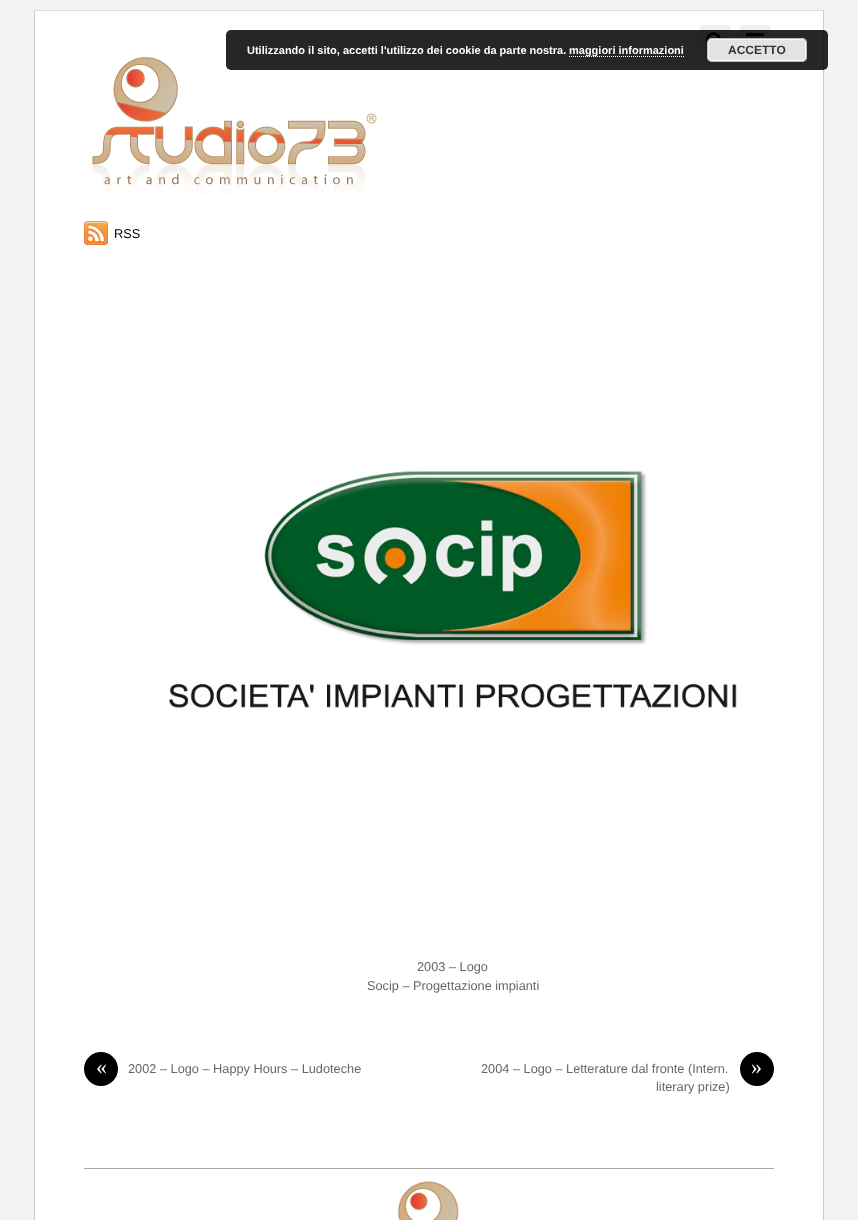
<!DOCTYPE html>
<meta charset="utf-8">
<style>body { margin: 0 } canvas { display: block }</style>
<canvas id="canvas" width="858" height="1220"></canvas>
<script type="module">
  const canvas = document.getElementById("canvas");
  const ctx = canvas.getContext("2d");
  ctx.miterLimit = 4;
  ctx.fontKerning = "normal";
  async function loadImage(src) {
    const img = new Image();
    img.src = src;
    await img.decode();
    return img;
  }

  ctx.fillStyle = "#f4f3f3";
  ctx.fillRect(0, 0, 858, 1220);
  ctx.fillStyle = "#ffffff";
  ctx.fillRect(35, 11, 788, 1209);
  ctx.fillStyle = "#dddddd";
  ctx.fillRect(34, 10, 790, 1);
  ctx.fillStyle = "#cccccc";
  ctx.fillRect(823, 10, 1, 1210);
  ctx.fillStyle = "#eeeeee";
  ctx.beginPath();
  ctx.roundRect(699, 25, 32, 30, 5);
  ctx.fill();
  ctx.drawImage(await loadImage("img1.png"), 706, 32, 15, 12);
  ctx.beginPath();
  ctx.roundRect(739, 25, 32, 30, 5);
  ctx.fill();
  ctx.drawImage(await loadImage("img2.png"), 746, 33, 18, 4);
  ctx.drawImage(await loadImage("img3.png"), 92, 57, 285, 138);
  ctx.fillStyle = "rgba(0, 0, 0, 0.85)";
  ctx.beginPath();
  ctx.roundRect(226, 30, 602, 40, 5);
  ctx.fill();
  ctx.font = "bold 11px Liberation Sans";
  ctx.fillStyle = "#ffffff";
  ctx.fillText("Utilizzando il sito, accetti l'utilizzo dei cookie da parte nostra.", 247, 54);
  ctx.beginPath();
  ctx.moveTo(569, 56.5);
  ctx.lineTo(684, 56.5);
  ctx.strokeStyle = "#ffffff";
  ctx.setLineDash([1, 1]);
  ctx.stroke();
  ctx.fillText("maggiori informazioni", 569, 54);
  ctx.fillStyle = "#e3e3e3";
  ctx.beginPath();
  ctx.roundRect(707, 38, 100, 24, 5);
  ctx.fill();
  ctx.beginPath();
  ctx.roundRect(708.5, 39.5, 97, 21, 3.5);
  ctx.strokeStyle = "#f6f6f6";
  ctx.setLineDash([]);
  ctx.stroke();
  ctx.beginPath();
  ctx.roundRect(707.5, 38.5, 99, 23, 4.5);
  ctx.strokeStyle = "#bbbbbb";
  ctx.stroke();
  ctx.font = "bold 12px Liberation Sans";
  ctx.fillStyle = "#333333";
  ctx.fillText("ACCETTO", 728, 54);
  ctx.fillStyle = "#cccccc";
  ctx.fillRect(34, 10, 1, 1210);
  ctx.drawImage(await loadImage("img4.png"), 84, 221, 24, 24);
  ctx.font = "12.75px Liberation Sans";
  ctx.fillStyle = "#000000";
  ctx.fillText("RSS", 114, 238);
  ctx.drawImage(await loadImage("img5.png"), 169, 470, 568, 238);
  ctx.fillStyle = "#666666";
  ctx.fillText("2003 – Logo", 417, 971);
  ctx.fillText("Socip – Progettazione impianti", 367, 990);
  ctx.fillStyle = "#000000";
  ctx.beginPath();
  ctx.arc(101, 1069, 17, 0, Math.PI * 2);
  ctx.fill();
  ctx.font = "22px Liberation Serif";
  ctx.fillStyle = "#ffffff";
  ctx.fillText("«", 96, 1074);
  ctx.font = "12.75px Liberation Sans";
  ctx.fillStyle = "#666666";
  ctx.fillText("2002 – Logo – Happy Hours – Ludoteche", 128, 1073);
  ctx.fillText("2004 – Logo – Letterature dal fronte (Intern.", 481, 1073);
  ctx.fillStyle = "#000000";
  ctx.beginPath();
  ctx.arc(757, 1069, 17, 0, Math.PI * 2);
  ctx.fill();
  ctx.font = "22px Liberation Serif";
  ctx.fillStyle = "#ffffff";
  ctx.fillText("»", 751, 1074);
  ctx.font = "12.75px Liberation Sans";
  ctx.fillStyle = "#666666";
  ctx.fillText("literary prize)", 656, 1091);
  ctx.fillStyle = "#a8a8a8";
  ctx.fillRect(84, 1168, 690, 1);
  ctx.drawImage(await loadImage("img6.png"), 397, 1179, 63, 41);
</script>
